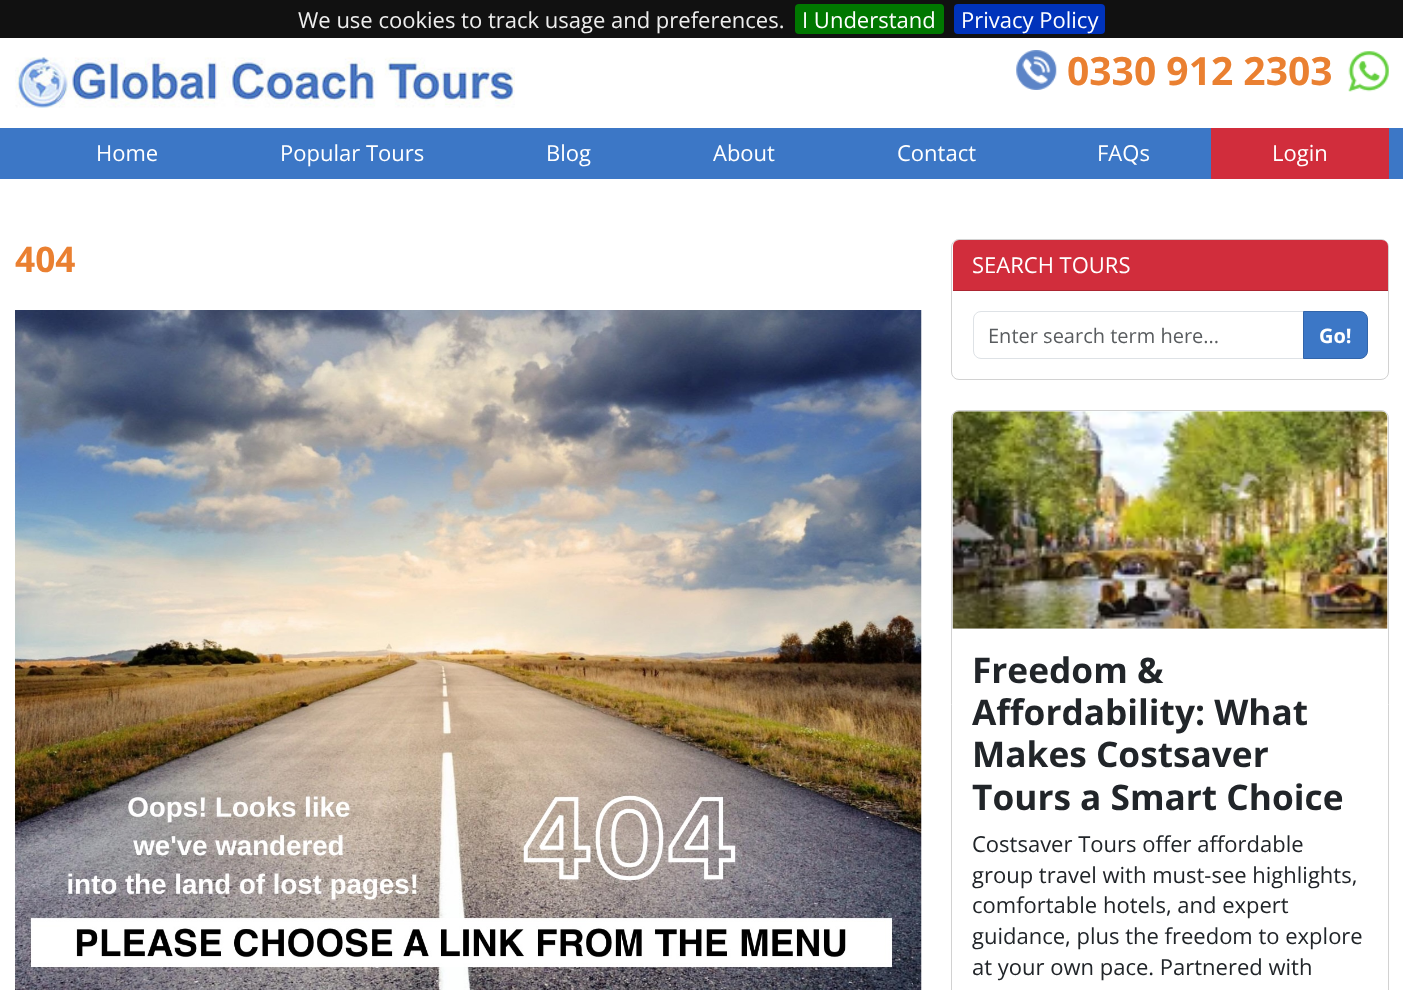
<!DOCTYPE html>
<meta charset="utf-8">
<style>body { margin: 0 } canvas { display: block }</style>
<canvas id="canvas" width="1403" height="990"></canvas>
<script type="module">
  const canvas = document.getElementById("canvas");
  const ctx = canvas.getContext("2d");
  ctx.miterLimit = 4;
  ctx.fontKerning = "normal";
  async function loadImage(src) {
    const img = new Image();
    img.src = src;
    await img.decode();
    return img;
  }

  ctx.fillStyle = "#ffffff";
  ctx.fillRect(0, 0, 1403, 990);
  ctx.fillStyle = "#111111";
  ctx.fillRect(0, 0, 1403, 38);
  ctx.font = "22px Open Sans";
  ctx.fillStyle = "#eeeeee";
  ctx.fillText("We use cookies to track usage and preferences.", 298, 28);
  ctx.fillStyle = "#007700";
  ctx.beginPath();
  ctx.roundRect(795, 4, 149, 30, 4);
  ctx.fill();
  ctx.fillStyle = "#ffffff";
  ctx.fillText("I Understand", 802, 28);
  ctx.fillStyle = "#0033bb";
  ctx.beginPath();
  ctx.roundRect(954, 4, 151, 30, 4);
  ctx.fill();
  ctx.fillStyle = "#ffffff";
  ctx.fillText("Privacy Policy", 961, 28);
  ctx.drawImage(await loadImage("img1.png"), 15, 57, 500, 51);
  ctx.drawImage(await loadImage("img2.png"), 1016, 50, 41, 40);
  ctx.font = "bold 39px Open Sans";
  ctx.fillStyle = "#ea8031";
  ctx.fillText("0330 912 2303", 1067, 85);
  ctx.drawImage(await loadImage("img3.png"), 1348, 51, 41, 41);
  ctx.fillStyle = "#3c77c6";
  ctx.fillRect(0, 128, 1403, 51);
  ctx.font = "22px Open Sans";
  ctx.fillStyle = "#ffffff";
  ctx.fillText("Home", 96, 161);
  ctx.fillText("Popular Tours", 280, 161);
  ctx.fillText("Blog", 546, 161);
  ctx.fillText("About", 713, 161);
  ctx.fillText("Contact", 897, 161);
  ctx.fillText("FAQs", 1097, 161);
  ctx.fillStyle = "#d12d3c";
  ctx.fillRect(1211, 128, 178, 51);
  ctx.fillStyle = "#ffffff";
  ctx.fillText("Login", 1272, 161);
  ctx.font = "bold 35.25px Open Sans";
  ctx.fillStyle = "#ea8031";
  ctx.fillText("404", 15, 272);
  ctx.drawImage(await loadImage("img4.png"), 15, 310, 907, 680);
  ctx.beginPath();
  ctx.roundRect(951.5, 239.5, 437, 140, 7.5);
  ctx.strokeStyle = "#d2d2d2";
  ctx.stroke();
  ctx.fillStyle = "#d12d3c";
  ctx.beginPath();
  ctx.roundRect(953, 240, 435, 51, [6, 6, 0, 0]);
  ctx.fill();
  ctx.fillStyle = "#ac2531";
  ctx.fillRect(953, 290, 435, 1);
  ctx.font = "22px Open Sans";
  ctx.fillStyle = "#ffffff";
  ctx.fillText("SEARCH TOURS", 972, 273);
  ctx.beginPath();
  ctx.roundRect(973.5, 311.5, 330, 47, [7.5, 0, 0, 7.5]);
  ctx.strokeStyle = "#dee2e6";
  ctx.stroke();
  ctx.font = "20px Open Sans";
  ctx.fillStyle = "#595c5f";
  ctx.fillText("Enter search term here...", 988, 343);
  ctx.fillStyle = "#3c77c6";
  ctx.beginPath();
  ctx.roundRect(1303.5, 311.5, 64, 47, [0, 7.5, 7.5, 0]);
  ctx.fill();
  ctx.strokeStyle = "#3265aa";
  ctx.stroke();
  ctx.font = "bold 20px Open Sans";
  ctx.fillStyle = "#ffffff";
  ctx.fillText("Go!", 1319, 343);
  ctx.beginPath();
  ctx.roundRect(951.5, 410.5, 437, 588, 7.5);
  ctx.strokeStyle = "#d2d2d2";
  ctx.stroke();
  ctx.drawImage(await loadImage("img5.png"), 952, 411, 436, 218);
  ctx.font = "bold 35.25px Open Sans";
  ctx.fillStyle = "#212529";
  ctx.fillText("Freedom &", 972, 683);
  ctx.fillText("Affordability: What", 972, 725);
  ctx.fillText("Makes Costsaver", 972, 767);
  ctx.fillText("Tours a Smart Choice", 972, 810);
  ctx.font = "22px Open Sans";
  ctx.fillText("Costsaver Tours offer affordable", 972, 852);
  ctx.fillText("group travel with must-see highlights,", 972, 883);
  ctx.fillText("comfortable hotels, and expert", 972, 913);
  ctx.fillText("guidance, plus the freedom to explore", 972, 944);
  ctx.fillText("at your own pace. Partnered with", 972, 975);
</script>
